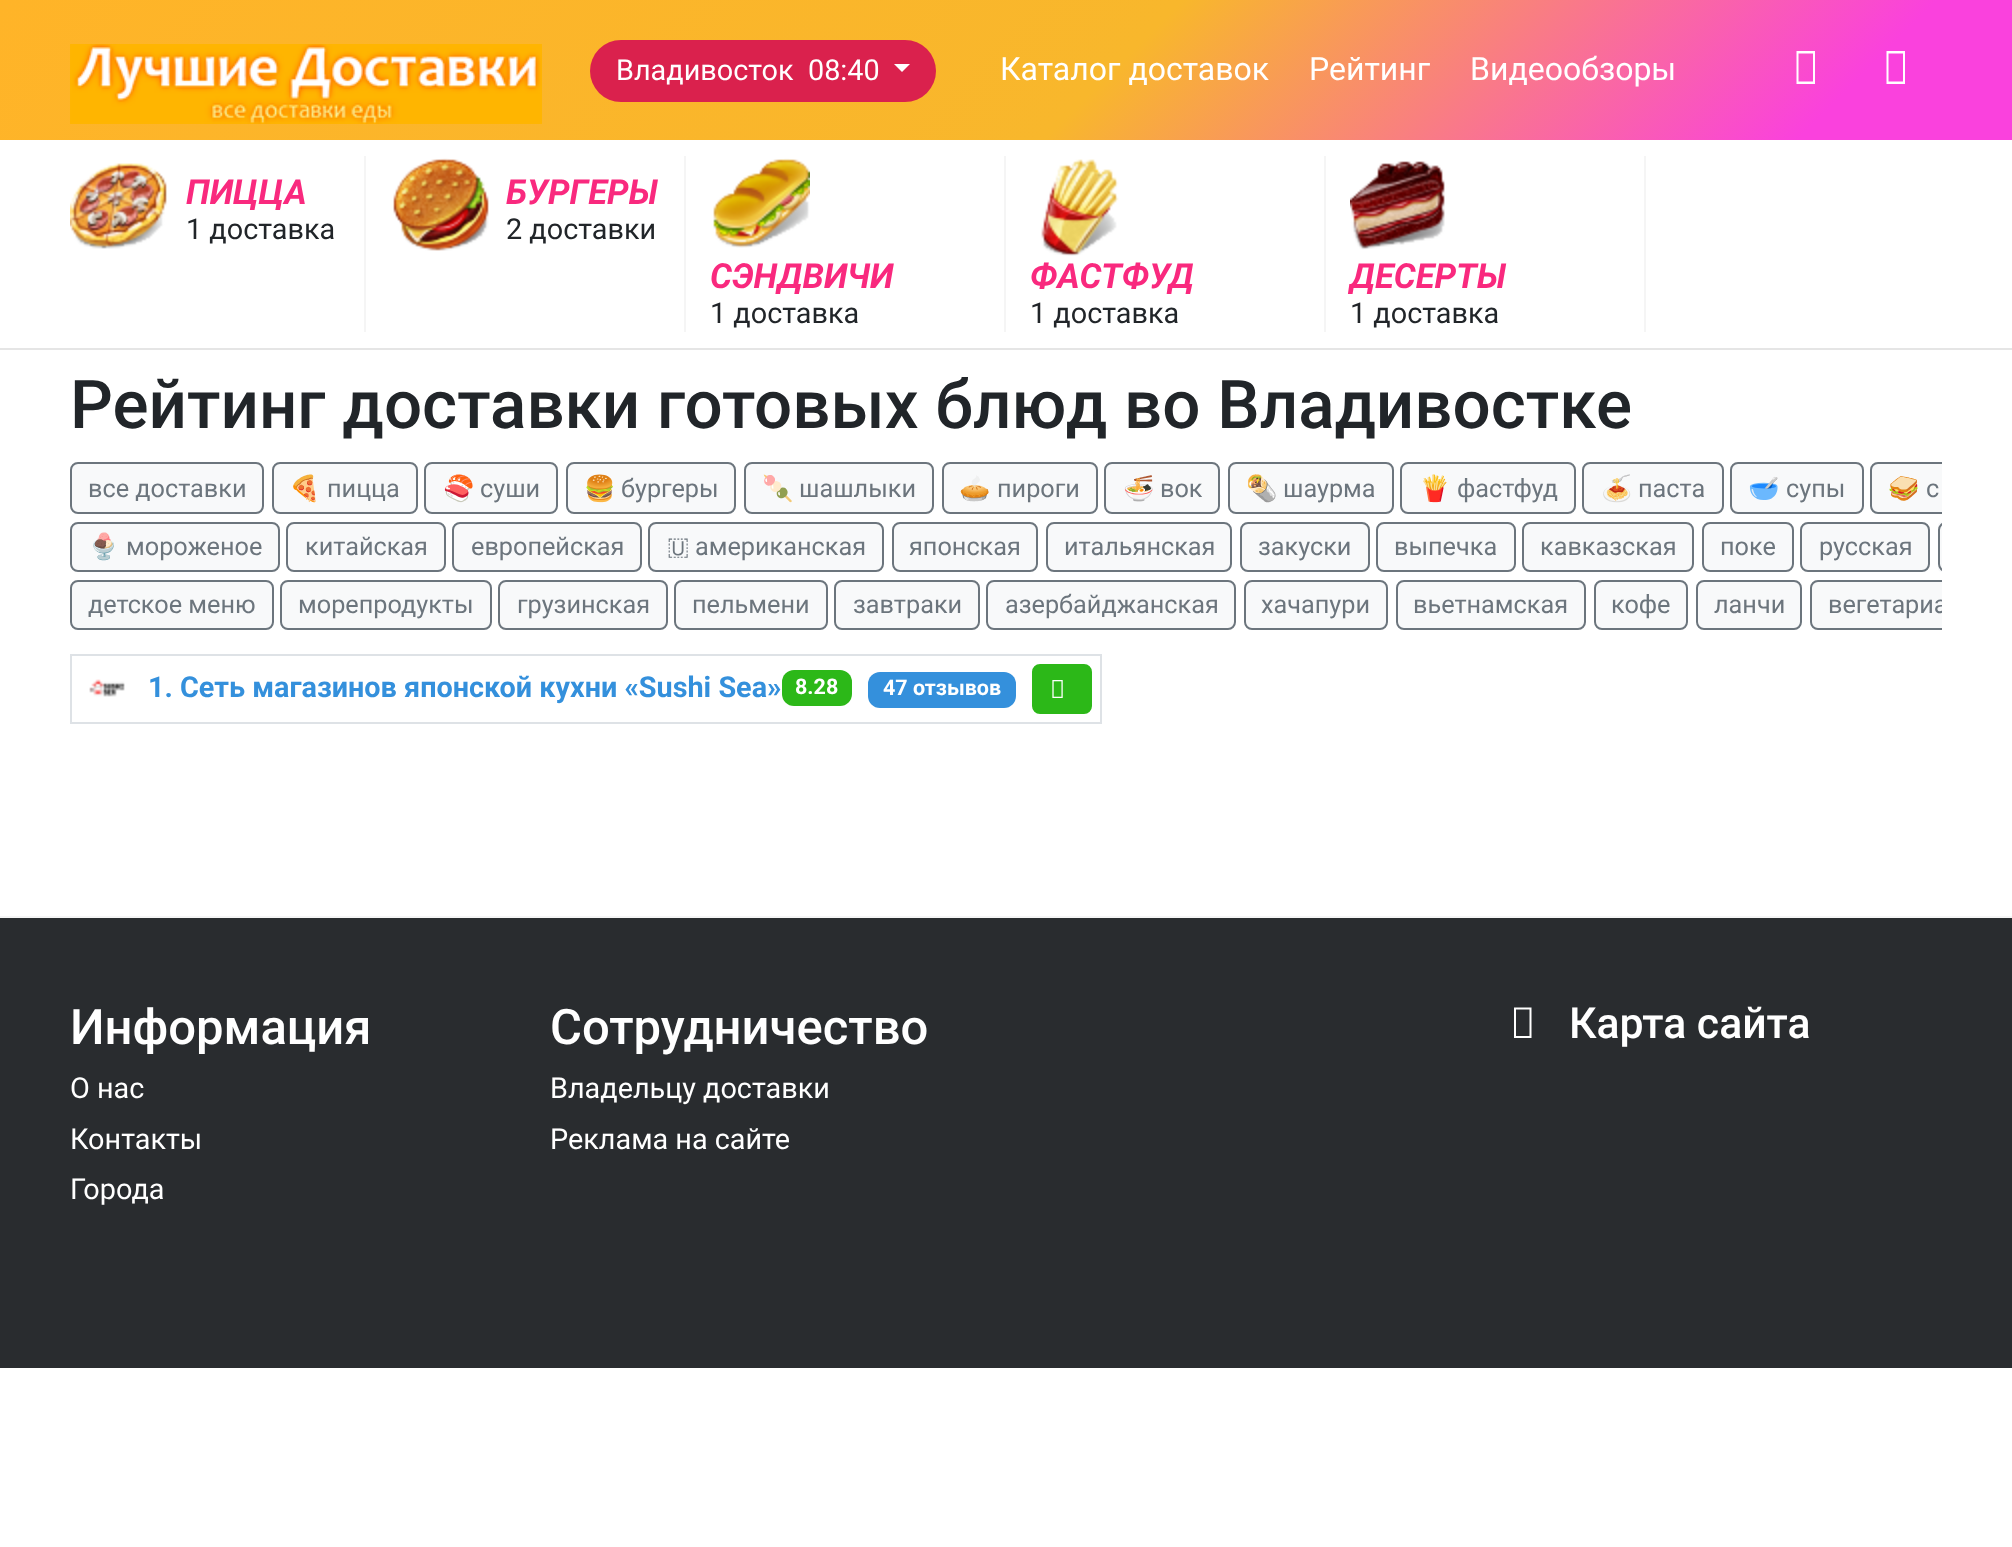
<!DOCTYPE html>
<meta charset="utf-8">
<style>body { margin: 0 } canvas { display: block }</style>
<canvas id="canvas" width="2012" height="1547"></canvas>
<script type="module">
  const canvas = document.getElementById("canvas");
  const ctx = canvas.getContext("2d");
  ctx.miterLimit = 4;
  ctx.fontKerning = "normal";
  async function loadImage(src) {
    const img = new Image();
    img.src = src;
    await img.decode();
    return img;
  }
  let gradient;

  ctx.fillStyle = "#ffffff";
  ctx.fillRect(0, 0, 2012, 1547);
  gradient = ctx.createLinearGradient(468, -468, 1544, 608);
  gradient.addColorStop(0, "#ffb428");
  gradient.addColorStop(0.55, "#f8b72c");
  gradient.addColorStop(0.9, "#fa41dd");
  ctx.fillStyle = gradient;
  ctx.fillRect(0, 0, 2012, 140);
  ctx.drawImage(await loadImage("img1.png"), 70, 44, 472, 80);
  ctx.fillStyle = "#da214d";
  ctx.beginPath();
  ctx.roundRect(590, 40, 346, 62, 31);
  ctx.fill();
  ctx.font = "28.8px Roboto";
  ctx.fillStyle = "#ffffff";
  ctx.fillText("Владивосток", 616, 80);
  ctx.fillText("08:40", 808, 80);
  ctx.beginPath();
  ctx.moveTo(894, 64);
  ctx.lineTo(910, 64);
  ctx.lineTo(902, 72);
  ctx.closePath();
  ctx.fill();
  ctx.font = "32px Roboto";
  ctx.fillText("Каталог доставок", 1000, 80);
  ctx.fillText("Рейтинг", 1309, 80);
  ctx.fillText("Видеообзоры", 1470, 80);
  ctx.beginPath();
  ctx.moveTo(1796.5, 84);
  ctx.lineTo(1796.5, 51);
  ctx.lineTo(1815, 51);
  ctx.lineTo(1815, 84);
  ctx.closePath();
  ctx.moveTo(1798.5, 81.5);
  ctx.lineTo(1813, 81.5);
  ctx.lineTo(1813, 53.5);
  ctx.lineTo(1798.5, 53.5);
  ctx.closePath();
  ctx.fill();
  ctx.beginPath();
  ctx.moveTo(1886.5, 84);
  ctx.lineTo(1886.5, 51);
  ctx.lineTo(1905, 51);
  ctx.lineTo(1905, 84);
  ctx.closePath();
  ctx.moveTo(1888.5, 81.5);
  ctx.lineTo(1903, 81.5);
  ctx.lineTo(1903, 53.5);
  ctx.lineTo(1888.5, 53.5);
  ctx.closePath();
  ctx.fill();
  ctx.fillStyle = "#e5e5e5";
  ctx.fillRect(0, 348, 2012, 2);
  ctx.fillStyle = "#f5f5f5";
  ctx.fillRect(364, 156, 2, 176);
  ctx.drawImage(await loadImage("img2.png"), 70, 163, 97, 86);
  ctx.font = "italic bold 34.5px Roboto";
  ctx.fillStyle = "#f9297e";
  ctx.fillText("ПИЦЦА", 186, 204);
  ctx.font = "28.8px Roboto";
  ctx.fillStyle = "#212529";
  ctx.fillText("1 доставка", 186, 239);
  ctx.fillStyle = "#f5f5f5";
  ctx.fillRect(684, 156, 2, 176);
  ctx.drawImage(await loadImage("img3.png"), 393, 158, 96, 93);
  ctx.font = "italic bold 34.5px Roboto";
  ctx.fillStyle = "#f9297e";
  ctx.fillText("БУРГЕРЫ", 506, 204);
  ctx.font = "28.8px Roboto";
  ctx.fillStyle = "#212529";
  ctx.fillText("2 доставки", 506, 239);
  ctx.fillStyle = "#f5f5f5";
  ctx.fillRect(1004, 156, 2, 176);
  ctx.drawImage(await loadImage("img4.png"), 713, 158, 97, 90);
  ctx.font = "italic bold 34.5px Roboto";
  ctx.fillStyle = "#f9297e";
  ctx.fillText("СЭНДВИЧИ", 710, 288);
  ctx.font = "28.8px Roboto";
  ctx.fillStyle = "#212529";
  ctx.fillText("1 доставка", 710, 323);
  ctx.fillStyle = "#f5f5f5";
  ctx.fillRect(1324, 156, 2, 176);
  ctx.drawImage(await loadImage("img5.png"), 1041, 159, 78, 97);
  ctx.font = "italic bold 34.5px Roboto";
  ctx.fillStyle = "#f9297e";
  ctx.fillText("ФАСТФУД", 1030, 288);
  ctx.font = "28.8px Roboto";
  ctx.fillStyle = "#212529";
  ctx.fillText("1 доставка", 1030, 323);
  ctx.fillStyle = "#f5f5f5";
  ctx.fillRect(1644, 156, 2, 176);
  ctx.drawImage(await loadImage("img6.png"), 1350, 161, 95, 89);
  ctx.font = "italic bold 34.5px Roboto";
  ctx.fillStyle = "#f9297e";
  ctx.fillText("ДЕСЕРТЫ", 1350, 288);
  ctx.font = "28.8px Roboto";
  ctx.fillStyle = "#212529";
  ctx.fillText("1 доставка", 1350, 323);
  ctx.font = "500 67.3px Roboto";
  ctx.fillText("Рейтинг доставки готовых блюд во Владивостке", 70, 428);
  ctx.fillStyle = "#f8f9fa";
  ctx.beginPath();
  ctx.roundRect(71, 463, 192, 50, 7);
  ctx.fill();
  ctx.strokeStyle = "#6c757d";
  ctx.lineWidth = 2;
  ctx.stroke();
  ctx.font = "25.25px Roboto";
  ctx.fillStyle = "#6c757d";
  ctx.fillText("все доставки", 88, 497);
  ctx.fillStyle = "#f8f9fa";
  ctx.beginPath();
  ctx.roundRect(273, 463, 144, 50, 7);
  ctx.fill();
  ctx.stroke();
  ctx.font = "25.25px Noto Color Emoji";
  ctx.fillStyle = "#6c757d";
  ctx.fillText("🍕", 289, 497);
  ctx.font = "25.25px Roboto";
  ctx.fillText("пицца", 327, 497);
  ctx.fillStyle = "#f8f9fa";
  ctx.beginPath();
  ctx.roundRect(425, 463, 132, 50, 7);
  ctx.fill();
  ctx.stroke();
  ctx.font = "25.25px Noto Color Emoji";
  ctx.fillStyle = "#6c757d";
  ctx.fillText("🍣", 443, 497);
  ctx.font = "25.25px Roboto";
  ctx.fillText("суши", 480, 497);
  ctx.fillStyle = "#f8f9fa";
  ctx.beginPath();
  ctx.roundRect(567, 463, 168, 50, 7);
  ctx.fill();
  ctx.stroke();
  ctx.font = "25.25px Noto Color Emoji";
  ctx.fillStyle = "#6c757d";
  ctx.fillText("🍔", 584, 497);
  ctx.font = "25.25px Roboto";
  ctx.fillText("бургеры", 621, 497);
  ctx.fillStyle = "#f8f9fa";
  ctx.beginPath();
  ctx.roundRect(745, 463, 188, 50, 7);
  ctx.fill();
  ctx.stroke();
  ctx.font = "25.25px Noto Color Emoji";
  ctx.fillStyle = "#6c757d";
  ctx.fillText("🍡", 762, 497);
  ctx.font = "25.25px Roboto";
  ctx.fillText("шашлыки", 799, 497);
  ctx.fillStyle = "#f8f9fa";
  ctx.beginPath();
  ctx.roundRect(943, 463, 154, 50, 7);
  ctx.fill();
  ctx.stroke();
  ctx.font = "25.25px Noto Color Emoji";
  ctx.fillStyle = "#6c757d";
  ctx.fillText("🥧", 959, 497);
  ctx.font = "25.25px Roboto";
  ctx.fillText("пироги", 997, 497);
  ctx.fillStyle = "#f8f9fa";
  ctx.beginPath();
  ctx.roundRect(1105, 463, 114, 50, 7);
  ctx.fill();
  ctx.stroke();
  ctx.font = "25.25px Noto Color Emoji";
  ctx.fillStyle = "#6c757d";
  ctx.fillText("🍜", 1123, 497);
  ctx.font = "25.25px Roboto";
  ctx.fillText("вок", 1160, 497);
  ctx.fillStyle = "#f8f9fa";
  ctx.beginPath();
  ctx.roundRect(1229, 463, 164, 50, 7);
  ctx.fill();
  ctx.stroke();
  ctx.font = "25.25px Noto Color Emoji";
  ctx.fillStyle = "#6c757d";
  ctx.fillText("🌯", 1246, 497);
  ctx.font = "25.25px Roboto";
  ctx.fillText("шаурма", 1283, 497);
  ctx.fillStyle = "#f8f9fa";
  ctx.beginPath();
  ctx.roundRect(1401, 463, 174, 50, 7);
  ctx.fill();
  ctx.stroke();
  ctx.font = "25.25px Noto Color Emoji";
  ctx.fillStyle = "#6c757d";
  ctx.fillText("🍟", 1419, 497);
  ctx.font = "25.25px Roboto";
  ctx.fillText("фастфуд", 1457, 497);
  ctx.fillStyle = "#f8f9fa";
  ctx.beginPath();
  ctx.roundRect(1583, 463, 140, 50, 7);
  ctx.fill();
  ctx.stroke();
  ctx.font = "25.25px Noto Color Emoji";
  ctx.fillStyle = "#6c757d";
  ctx.fillText("🍝", 1601, 497);
  ctx.font = "25.25px Roboto";
  ctx.fillText("паста", 1638, 497);
  ctx.fillStyle = "#f8f9fa";
  ctx.beginPath();
  ctx.roundRect(1731, 463, 132, 50, 7);
  ctx.fill();
  ctx.stroke();
  ctx.font = "25.25px Noto Color Emoji";
  ctx.fillStyle = "#6c757d";
  ctx.fillText("🥣", 1748, 497);
  ctx.font = "25.25px Roboto";
  ctx.fillText("супы", 1786, 497);
  ctx.fillStyle = "#f8f9fa";
  ctx.beginPath();
  ctx.roundRect(1870, 462, 72, 52, [8, 0, 0, 8]);
  ctx.fill();
  ctx.save();
  ctx.beginPath();
  ctx.rect(70, 462, 1872, 176);
  ctx.clip();
  ctx.beginPath();
  ctx.roundRect(1871, 463, 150, 50, 7);
  ctx.stroke();
  ctx.restore();
  ctx.font = "25.25px Noto Color Emoji";
  ctx.fillStyle = "#6c757d";
  ctx.fillText("🥪", 1888, 497);
  ctx.font = "25.25px Roboto";
  ctx.fillText("с", 1926, 497);
  ctx.fillStyle = "#f8f9fa";
  ctx.beginPath();
  ctx.roundRect(71, 523, 208, 48, 7);
  ctx.fill();
  ctx.stroke();
  ctx.font = "25.25px Noto Color Emoji";
  ctx.fillStyle = "#6c757d";
  ctx.fillText("🍨", 88, 555);
  ctx.font = "25.25px Roboto";
  ctx.fillText("мороженое", 126, 555);
  ctx.fillStyle = "#f8f9fa";
  ctx.beginPath();
  ctx.roundRect(287, 523, 158, 48, 7);
  ctx.fill();
  ctx.stroke();
  ctx.fillStyle = "#6c757d";
  ctx.fillText("китайская", 305, 555);
  ctx.fillStyle = "#f8f9fa";
  ctx.beginPath();
  ctx.roundRect(453, 523, 188, 48, 7);
  ctx.fill();
  ctx.stroke();
  ctx.fillStyle = "#6c757d";
  ctx.fillText("европейская", 471, 555);
  ctx.fillStyle = "#f8f9fa";
  ctx.beginPath();
  ctx.roundRect(649, 523, 234, 48, 7);
  ctx.fill();
  ctx.stroke();
  ctx.font = "25.25px FreeSans";
  ctx.fillStyle = "#6c757d";
  ctx.fillText("🇺", 667, 555);
  ctx.font = "25.25px Roboto";
  ctx.fillText("американская", 695, 555);
  ctx.fillStyle = "#f8f9fa";
  ctx.beginPath();
  ctx.roundRect(893, 523, 144, 48, 7);
  ctx.fill();
  ctx.stroke();
  ctx.fillStyle = "#6c757d";
  ctx.fillText("японская", 909, 555);
  ctx.fillStyle = "#f8f9fa";
  ctx.beginPath();
  ctx.roundRect(1047, 523, 184, 48, 7);
  ctx.fill();
  ctx.stroke();
  ctx.fillStyle = "#6c757d";
  ctx.fillText("итальянская", 1064, 555);
  ctx.fillStyle = "#f8f9fa";
  ctx.beginPath();
  ctx.roundRect(1241, 523, 128, 48, 7);
  ctx.fill();
  ctx.stroke();
  ctx.fillStyle = "#6c757d";
  ctx.fillText("закуски", 1258, 555);
  ctx.fillStyle = "#f8f9fa";
  ctx.beginPath();
  ctx.roundRect(1377, 523, 138, 48, 7);
  ctx.fill();
  ctx.stroke();
  ctx.fillStyle = "#6c757d";
  ctx.fillText("выпечка", 1394, 555);
  ctx.fillStyle = "#f8f9fa";
  ctx.beginPath();
  ctx.roundRect(1523, 523, 170, 48, 7);
  ctx.fill();
  ctx.stroke();
  ctx.fillStyle = "#6c757d";
  ctx.fillText("кавказская", 1540, 555);
  ctx.fillStyle = "#f8f9fa";
  ctx.beginPath();
  ctx.roundRect(1703, 523, 90, 48, 7);
  ctx.fill();
  ctx.stroke();
  ctx.fillStyle = "#6c757d";
  ctx.fillText("поке", 1720, 555);
  ctx.fillStyle = "#f8f9fa";
  ctx.beginPath();
  ctx.roundRect(1801, 523, 128, 48, 7);
  ctx.fill();
  ctx.stroke();
  ctx.fillStyle = "#6c757d";
  ctx.fillText("русская", 1819, 555);
  ctx.fillStyle = "#f8f9fa";
  ctx.beginPath();
  ctx.roundRect(1938, 522, 4, 50, [8, 0, 0, 8]);
  ctx.fill();
  ctx.save();
  ctx.beginPath();
  ctx.rect(70, 462, 1872, 176);
  ctx.clip();
  ctx.beginPath();
  ctx.roundRect(1939, 523, 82, 48, 7);
  ctx.stroke();
  ctx.restore();
  ctx.beginPath();
  ctx.roundRect(71, 581, 202, 48, 7);
  ctx.fill();
  ctx.stroke();
  ctx.fillStyle = "#6c757d";
  ctx.fillText("детское меню", 88, 613);
  ctx.fillStyle = "#f8f9fa";
  ctx.beginPath();
  ctx.roundRect(281, 581, 210, 48, 7);
  ctx.fill();
  ctx.stroke();
  ctx.fillStyle = "#6c757d";
  ctx.fillText("морепродукты", 298, 613);
  ctx.fillStyle = "#f8f9fa";
  ctx.beginPath();
  ctx.roundRect(499, 581, 168, 48, 7);
  ctx.fill();
  ctx.stroke();
  ctx.fillStyle = "#6c757d";
  ctx.fillText("грузинская", 517, 613);
  ctx.fillStyle = "#f8f9fa";
  ctx.beginPath();
  ctx.roundRect(675, 581, 152, 48, 7);
  ctx.fill();
  ctx.stroke();
  ctx.fillStyle = "#6c757d";
  ctx.fillText("пельмени", 692, 613);
  ctx.fillStyle = "#f8f9fa";
  ctx.beginPath();
  ctx.roundRect(835, 581, 144, 48, 7);
  ctx.fill();
  ctx.stroke();
  ctx.fillStyle = "#6c757d";
  ctx.fillText("завтраки", 853, 613);
  ctx.fillStyle = "#f8f9fa";
  ctx.beginPath();
  ctx.roundRect(987, 581, 248, 48, 7);
  ctx.fill();
  ctx.stroke();
  ctx.fillStyle = "#6c757d";
  ctx.fillText("азербайджанская", 1005, 613);
  ctx.fillStyle = "#f8f9fa";
  ctx.beginPath();
  ctx.roundRect(1245, 581, 142, 48, 7);
  ctx.fill();
  ctx.stroke();
  ctx.fillStyle = "#6c757d";
  ctx.fillText("хачапури", 1261, 613);
  ctx.fillStyle = "#f8f9fa";
  ctx.beginPath();
  ctx.roundRect(1397, 581, 188, 48, 7);
  ctx.fill();
  ctx.stroke();
  ctx.fillStyle = "#6c757d";
  ctx.fillText("вьетнамская", 1413, 613);
  ctx.fillStyle = "#f8f9fa";
  ctx.beginPath();
  ctx.roundRect(1595, 581, 92, 48, 7);
  ctx.fill();
  ctx.stroke();
  ctx.fillStyle = "#6c757d";
  ctx.fillText("кофе", 1611, 613);
  ctx.fillStyle = "#f8f9fa";
  ctx.beginPath();
  ctx.roundRect(1697, 581, 104, 48, 7);
  ctx.fill();
  ctx.stroke();
  ctx.fillStyle = "#6c757d";
  ctx.fillText("ланчи", 1714, 613);
  ctx.fillStyle = "#f8f9fa";
  ctx.beginPath();
  ctx.roundRect(1810, 580, 132, 50, [8, 0, 0, 8]);
  ctx.fill();
  ctx.save();
  ctx.beginPath();
  ctx.rect(70, 462, 1872, 176);
  ctx.clip();
  ctx.beginPath();
  ctx.roundRect(1811, 581, 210, 48, 7);
  ctx.stroke();
  ctx.fillStyle = "#6c757d";
  ctx.fillText("вегетариа", 1828, 613);
  ctx.restore();
  ctx.fillStyle = "#dee2e6";
  ctx.fillRect(70, 654, 1032, 2);
  ctx.fillRect(1100, 654, 2, 70);
  ctx.fillRect(70, 722, 1032, 2);
  ctx.fillRect(70, 654, 2, 70);
  ctx.drawImage(await loadImage("img7.png"), 89, 679, 36, 18);
  ctx.font = "bold 28.8px Roboto";
  ctx.fillStyle = "#3490dc";
  ctx.fillText("1. Сеть магазинов японской кухни «Sushi Sea»", 148, 697);
  ctx.fillStyle = "#2cb818";
  ctx.beginPath();
  ctx.roundRect(782, 670, 70, 36, 12);
  ctx.fill();
  ctx.font = "bold 21.5px Roboto";
  ctx.fillStyle = "#ffffff";
  ctx.fillText("8.28", 795, 694);
  ctx.fillStyle = "#3490dc";
  ctx.beginPath();
  ctx.roundRect(868, 672, 148, 36, 12);
  ctx.fill();
  ctx.fillStyle = "#ffffff";
  ctx.fillText("47 отзывов", 883, 695);
  ctx.fillStyle = "#2cb818";
  ctx.beginPath();
  ctx.roundRect(1033, 665, 58, 48, 7);
  ctx.fill();
  ctx.strokeStyle = "#2cb818";
  ctx.stroke();
  ctx.drawImage(await loadImage("img8.png"), 1052, 680, 11, 18);
  ctx.fillStyle = "#292c2f";
  ctx.fillRect(0, 918, 2012, 450);
  ctx.fillStyle = "#f5f5f5";
  ctx.fillRect(0, 916, 2012, 2);
  ctx.font = "500 49px Roboto";
  ctx.fillStyle = "#ffffff";
  ctx.fillText("Информация", 70, 1044);
  ctx.font = "28.8px Roboto";
  ctx.fillText("О нас", 70, 1098);
  ctx.fillText("Контакты", 70, 1149);
  ctx.fillText("Города", 70, 1199);
  ctx.font = "500 49px Roboto";
  ctx.fillText("Сотрудничество", 550, 1044);
  ctx.font = "28.8px Roboto";
  ctx.fillText("Владельцу доставки", 550, 1098);
  ctx.fillText("Реклама на сайте", 550, 1149);
  ctx.beginPath();
  ctx.moveTo(1514, 1038);
  ctx.lineTo(1514, 1007.5);
  ctx.lineTo(1531.5, 1007.5);
  ctx.lineTo(1531.5, 1038);
  ctx.closePath();
  ctx.moveTo(1516, 1036);
  ctx.lineTo(1529.5, 1036);
  ctx.lineTo(1529.5, 1009.5);
  ctx.lineTo(1516, 1009.5);
  ctx.closePath();
  ctx.fill();
  ctx.font = "500 42.75px Roboto";
  ctx.fillText("Карта сайта", 1569, 1038);
</script>
